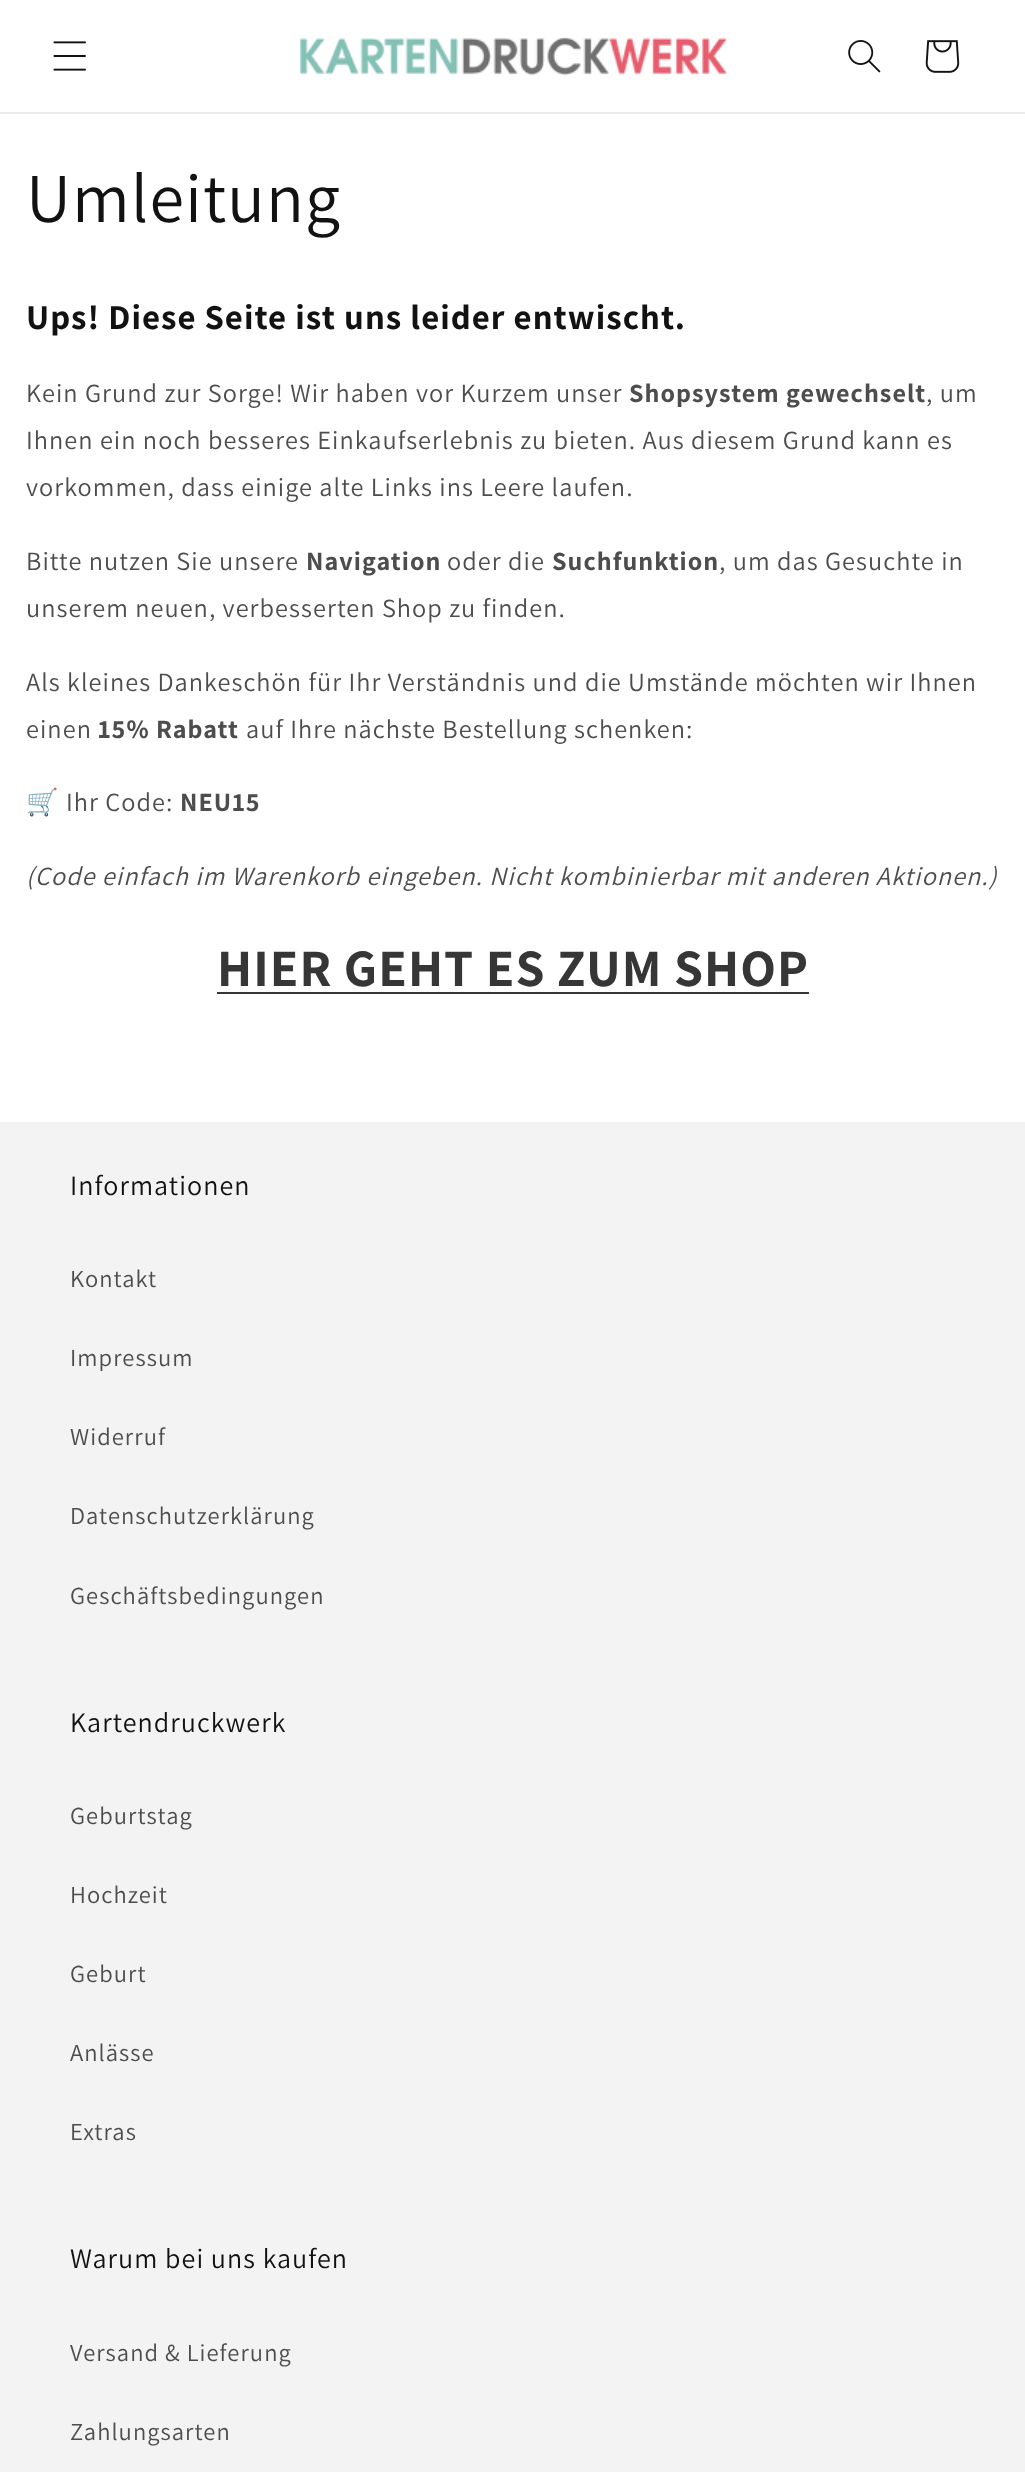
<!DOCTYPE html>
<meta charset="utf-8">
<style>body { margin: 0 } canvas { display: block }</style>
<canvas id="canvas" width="1025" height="2472"></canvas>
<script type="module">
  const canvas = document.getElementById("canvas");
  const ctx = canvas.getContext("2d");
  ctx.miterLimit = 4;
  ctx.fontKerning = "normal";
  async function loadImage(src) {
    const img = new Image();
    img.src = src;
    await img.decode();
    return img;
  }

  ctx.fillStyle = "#ffffff";
  ctx.fillRect(0, 0, 1025, 2472);
  ctx.fillStyle = "#ececec";
  ctx.fillRect(0, 112, 1025, 2);
  ctx.drawImage(await loadImage("img1.png"), 53, 41, 33, 30);
  ctx.drawImage(await loadImage("img2.png"), 299, 37, 428, 39);
  ctx.drawImage(await loadImage("img3.png"), 848, 40, 33, 33);
  ctx.drawImage(await loadImage("img4.png"), 925, 40, 35, 33);
  ctx.letterSpacing = "1.05px";
  ctx.font = "70px Assistant";
  ctx.fillStyle = "#121212";
  ctx.fillText("Umleitung", 26, 222);
  ctx.font = "bold 35px Assistant";
  ctx.fillText("Ups! Diese Seite ist uns leider entwischt.", 26, 329);
  ctx.font = "26.25px Assistant";
  ctx.fillStyle = "#4d4d4d";
  ctx.fillText("Kein Grund zur Sorge! Wir haben vor Kurzem unser", 26, 402);
  ctx.font = "bold 26.25px Assistant";
  ctx.fillText("Shopsystem gewechselt", 629, 402);
  ctx.font = "26.25px Assistant";
  ctx.fillText(", um", 926, 402);
  ctx.fillText("Ihnen ein noch besseres Einkaufserlebnis zu bieten. Aus diesem Grund kann es", 26, 449);
  ctx.fillText("vorkommen, dass einige alte Links ins Leere laufen.", 26, 496);
  ctx.fillText("Bitte nutzen Sie unsere", 26, 570);
  ctx.font = "bold 26.25px Assistant";
  ctx.fillText("Navigation", 306, 570);
  ctx.font = "26.25px Assistant";
  ctx.fillText("oder die", 447, 570);
  ctx.font = "bold 26.25px Assistant";
  ctx.fillText("Suchfunktion", 552, 570);
  ctx.font = "26.25px Assistant";
  ctx.fillText(", um das Gesuchte in", 719, 570);
  ctx.fillText("unserem neuen, verbesserten Shop zu finden.", 26, 617);
  ctx.fillText("Als kleines Dankeschön für Ihr Verständnis und die Umstände möchten wir Ihnen", 26, 691);
  ctx.fillText("einen", 26, 738);
  ctx.font = "bold 26.25px Assistant";
  ctx.fillText("15% Rabatt", 98, 738);
  ctx.font = "26.25px Assistant";
  ctx.fillText("auf Ihre nächste Bestellung schenken:", 246, 738);
  ctx.font = "26.25px Noto Color Emoji";
  ctx.fillText("🛒", 26, 811);
  ctx.font = "26.25px Assistant";
  ctx.fillText("Ihr Code:", 66, 811);
  ctx.font = "bold 26.25px Assistant";
  ctx.fillText("NEU15", 180, 811);
  ctx.font = "italic 26.25px Assistant";
  ctx.fillText("(Code einfach im Warenkorb eingeben. Nicht kombinierbar mit anderen Aktionen.)", 26, 885);
  ctx.font = "bold 52.5px Assistant";
  ctx.fillStyle = "#363636";
  ctx.fillText("HIER GEHT ES ZUM SHOP", 217, 986);
  ctx.fillRect(217, 992, 592, 2);
  ctx.fillStyle = "#f3f3f3";
  ctx.fillRect(0, 1122, 1025, 1350);
  ctx.font = "28px Assistant";
  ctx.fillStyle = "#121212";
  ctx.fillText("Informationen", 70, 1195);
  ctx.font = "24.5px Assistant";
  ctx.fillStyle = "#4d4d4d";
  ctx.fillText("Kontakt", 70, 1287);
  ctx.fillText("Impressum", 70, 1366);
  ctx.fillText("Widerruf", 70, 1445);
  ctx.fillText("Datenschutzerklärung", 70, 1524);
  ctx.fillText("Geschäftsbedingungen", 70, 1604);
  ctx.font = "28px Assistant";
  ctx.fillStyle = "#121212";
  ctx.fillText("Kartendruckwerk", 70, 1732);
  ctx.font = "24.5px Assistant";
  ctx.fillStyle = "#4d4d4d";
  ctx.fillText("Geburtstag", 70, 1824);
  ctx.fillText("Hochzeit", 70, 1903);
  ctx.fillText("Geburt", 70, 1982);
  ctx.fillText("Anlässe", 70, 2061);
  ctx.fillText("Extras", 70, 2140);
  ctx.font = "28px Assistant";
  ctx.fillStyle = "#121212";
  ctx.fillText("Warum bei uns kaufen", 70, 2268);
  ctx.font = "24.5px Assistant";
  ctx.fillStyle = "#4d4d4d";
  ctx.fillText("Versand & Lieferung", 70, 2361);
  ctx.fillText("Zahlungsarten", 70, 2440);
</script>
